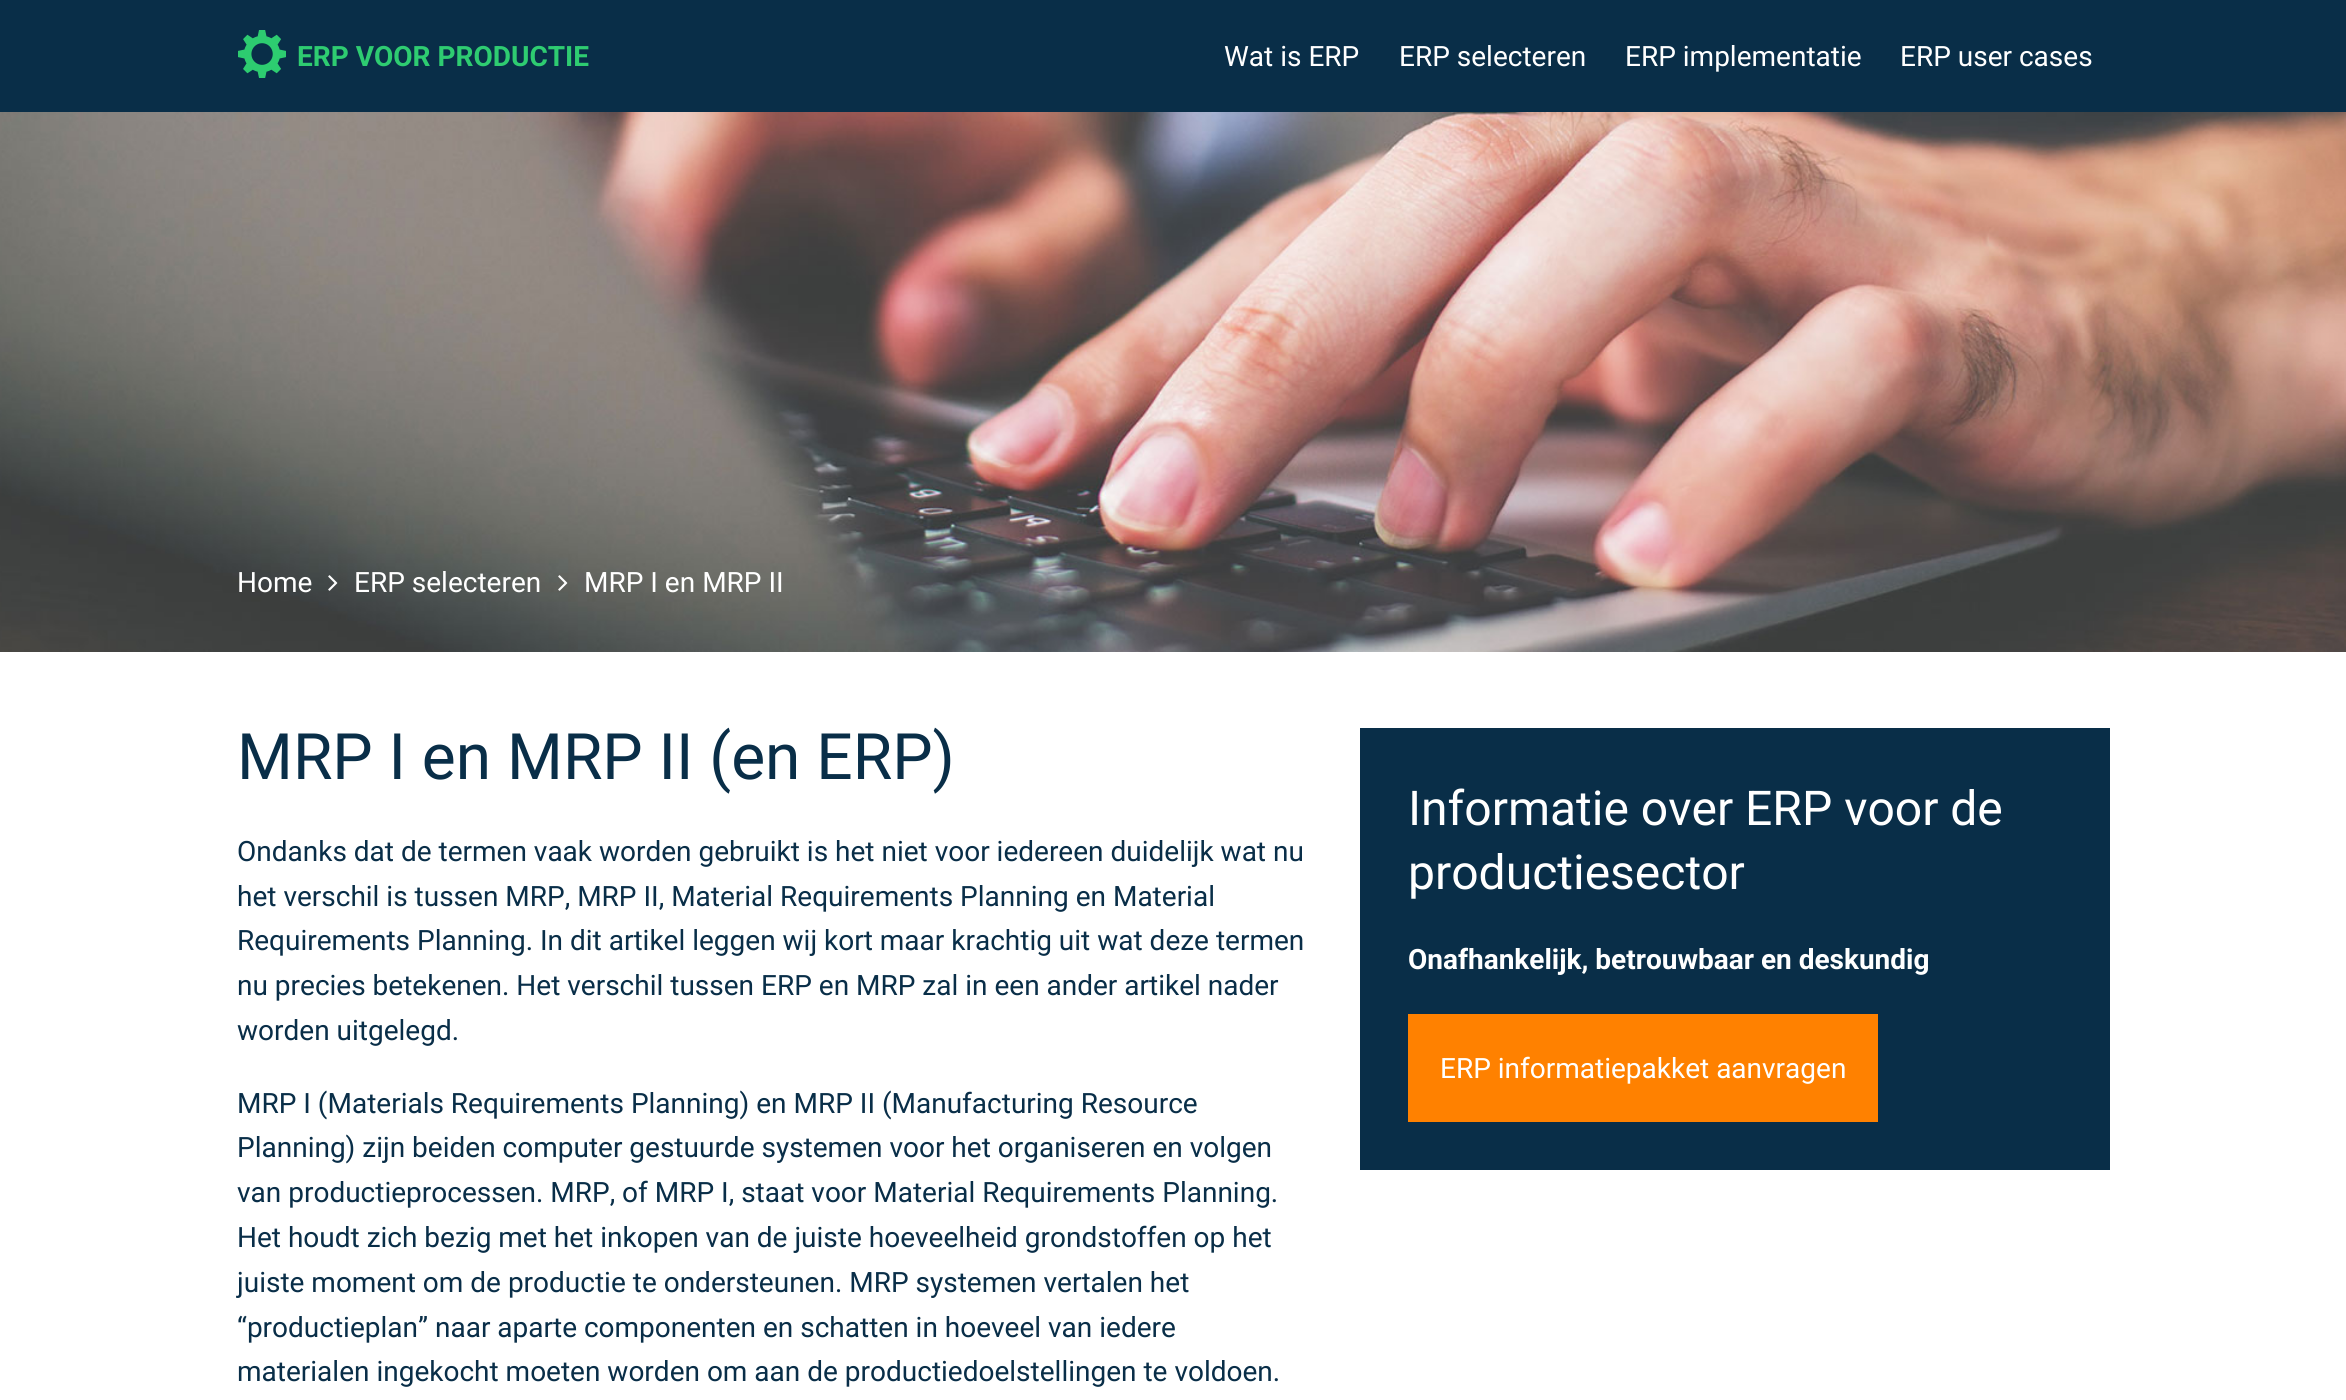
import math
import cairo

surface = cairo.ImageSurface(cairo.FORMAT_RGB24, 2346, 1400)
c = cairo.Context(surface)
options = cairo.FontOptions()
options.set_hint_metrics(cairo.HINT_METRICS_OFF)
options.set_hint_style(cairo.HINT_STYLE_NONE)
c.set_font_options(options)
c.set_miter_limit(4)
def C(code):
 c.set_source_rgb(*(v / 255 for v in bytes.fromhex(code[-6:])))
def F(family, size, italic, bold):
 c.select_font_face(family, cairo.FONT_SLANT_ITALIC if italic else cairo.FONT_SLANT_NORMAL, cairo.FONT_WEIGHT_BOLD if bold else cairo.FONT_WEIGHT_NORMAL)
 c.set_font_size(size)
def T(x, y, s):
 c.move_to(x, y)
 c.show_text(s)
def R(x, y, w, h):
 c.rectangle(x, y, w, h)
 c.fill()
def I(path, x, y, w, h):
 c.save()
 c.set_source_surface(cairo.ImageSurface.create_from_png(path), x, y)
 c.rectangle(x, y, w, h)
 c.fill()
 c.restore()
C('ffffff')
c.paint()
C('092e48')
R(0,0,2346,112)
I('1.png',238,30,48,48)
F('Roboto',28,0,1)
C('2ecc71')
T(297,66,'ERP VOOR PRODUCTIE')
F('Roboto',28,0,0)
C('ffffff')
T(1224,66,'Wat is ERP')
T(1399,66,'ERP selecteren')
T(1625,66,'ERP implementatie')
T(1900,66,'ERP user cases')
I('2.png',0,112,2346,540)
T(237,592,'Home')
I('3.png',328,575,10,16)
T(354,592,'ERP selecteren')
I('4.png',558,575,10,16)
T(584,592,'MRP I en MRP II')
F('Roboto',64,0,0)
C('092e48')
T(237,779,'MRP I en MRP II (en ERP)')
F('Roboto',28,0,0)
T(237,861,'Ondanks dat de termen vaak worden gebruikt is het niet voor iedereen duidelijk wat nu')
T(237,906,'het verschil is tussen MRP, MRP II, Material Requirements Planning en Material')
T(237,950,'Requirements Planning. In dit artikel leggen wij kort maar krachtig uit wat deze termen')
T(237,995,'nu precies betekenen. Het verschil tussen ERP en MRP zal in een ander artikel nader')
T(237,1040,'worden uitgelegd.')
T(237,1113,'MRP I (Materials Requirements Planning) en MRP II (Manufacturing Resource')
T(237,1157,'Planning) zijn beiden computer gestuurde systemen voor het organiseren en volgen')
T(237,1202,'van productieprocessen. MRP, of MRP I, staat voor Material Requirements Planning.')
T(237,1247,'Het houdt zich bezig met het inkopen van de juiste hoeveelheid grondstoffen op het')
T(237,1292,'juiste moment om de productie te ondersteunen. MRP systemen vertalen het')
T(237,1337,'“productieplan” naar aparte componenten en schatten in hoeveel van iedere')
T(237,1381,'materialen ingekocht moeten worden om aan de productiedoelstellingen te voldoen.')
R(1360,728,750,442)
F('Roboto',48,0,0)
C('ffffff')
T(1408,825,'Informatie over ERP voor de')
T(1408,889,'productiesector')
F('Roboto',28,0,1)
T(1408,969,'Onafhankelijk, betrouwbaar en deskundig')
C('ff8100')
R(1408,1014,470,108)
F('Roboto',28,0,0)
C('ffffff')
T(1440,1078,'ERP informatiepakket aanvragen')
surface.write_to_png('o.png')
